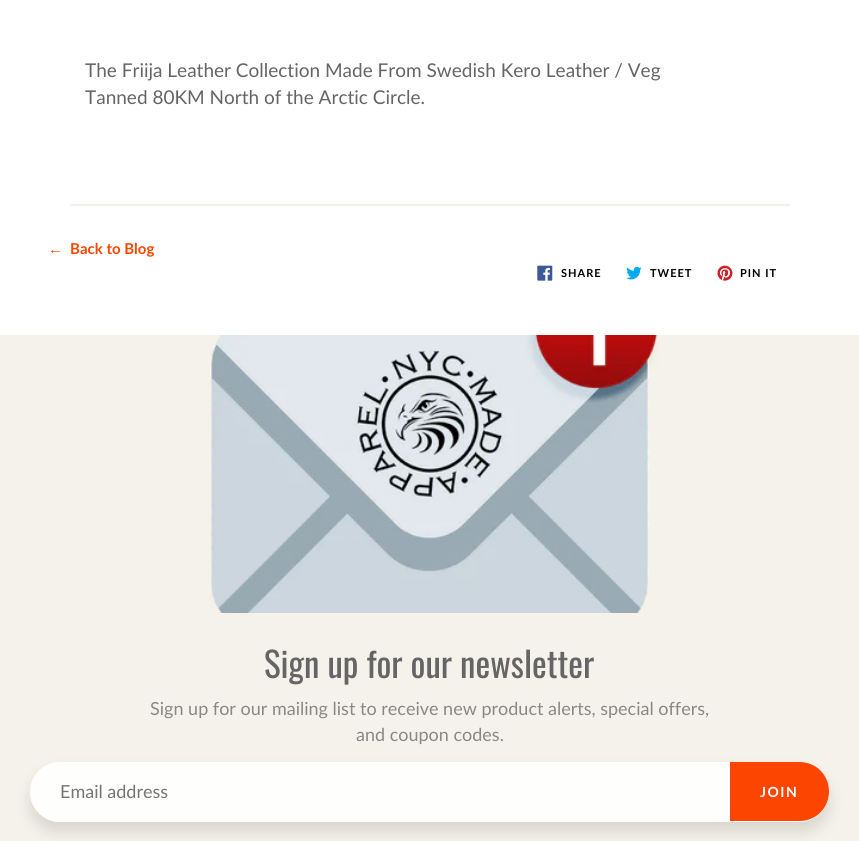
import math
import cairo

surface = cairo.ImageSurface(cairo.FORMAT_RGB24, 859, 841)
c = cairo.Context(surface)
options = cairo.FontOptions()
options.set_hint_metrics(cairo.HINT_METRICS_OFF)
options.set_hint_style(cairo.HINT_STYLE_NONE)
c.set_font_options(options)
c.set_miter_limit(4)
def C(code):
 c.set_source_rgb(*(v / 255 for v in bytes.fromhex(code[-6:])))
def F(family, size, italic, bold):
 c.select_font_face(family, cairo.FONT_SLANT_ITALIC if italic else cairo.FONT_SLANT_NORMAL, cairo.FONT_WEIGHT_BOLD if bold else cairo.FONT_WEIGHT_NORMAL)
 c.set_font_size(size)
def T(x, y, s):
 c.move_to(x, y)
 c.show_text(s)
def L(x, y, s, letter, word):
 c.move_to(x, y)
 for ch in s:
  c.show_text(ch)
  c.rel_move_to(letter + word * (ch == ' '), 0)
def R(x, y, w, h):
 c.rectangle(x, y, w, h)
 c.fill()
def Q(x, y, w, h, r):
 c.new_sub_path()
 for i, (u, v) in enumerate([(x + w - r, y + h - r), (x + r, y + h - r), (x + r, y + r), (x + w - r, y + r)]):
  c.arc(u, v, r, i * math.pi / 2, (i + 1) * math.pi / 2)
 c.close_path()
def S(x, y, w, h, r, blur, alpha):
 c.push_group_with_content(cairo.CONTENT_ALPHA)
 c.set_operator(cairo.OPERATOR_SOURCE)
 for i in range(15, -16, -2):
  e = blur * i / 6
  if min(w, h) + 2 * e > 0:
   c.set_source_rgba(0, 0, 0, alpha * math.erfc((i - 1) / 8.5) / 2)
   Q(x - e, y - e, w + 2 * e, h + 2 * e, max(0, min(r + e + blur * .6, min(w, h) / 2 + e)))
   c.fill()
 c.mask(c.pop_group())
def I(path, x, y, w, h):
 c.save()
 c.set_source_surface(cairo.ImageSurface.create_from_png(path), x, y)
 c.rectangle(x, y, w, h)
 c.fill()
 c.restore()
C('ffffff')
c.paint()
F('Lato',19,0,0)
C('666565')
T(85,77,'The Friija Leather Collection Made From Swedish Kero Leather / Veg')
T(85,104,'Tanned 80KM North of the Arctic Circle.')
C('f5f2eb')
R(70,204,720,2)
F('Liberation Sans',15,0,1)
C('fc4500')
T(48,254,'←')
F('Lato',15,0,1)
T(70,254,'Back to Blog')
I('1.png',537,265,16,16)
F('Lato',11,0,1)
C('000000')
L(561,277,'SHARE',1,0)
I('2.png',626,266,16,14)
L(650,277,'TWEET',1,0)
I('3.png',717,265,16,16)
L(740,277,'PIN IT',1,0)
C('f5f2eb')
R(0,335,859,506)
I('4.png',210,335,449,278)
F('Oswald',35,0,0)
C('666565')
T(264,678,'Sign up for our newsletter')
F('Lato',18,0,0)
C('8a8887')
T(150,715,'Sign up for our mailing list to receive new product alerts, special offers,')
T(356,741,'and coupon codes.')
c.save()
c.set_fill_rule(cairo.FILL_RULE_EVEN_ODD)
c.new_path()
c.move_to(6,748)
c.line_to(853,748)
c.line_to(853,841)
c.line_to(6,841)
c.close_path()
c.move_to(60,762)
c.line_to(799,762)
c.curve_to(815.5,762,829,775.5,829,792)
c.curve_to(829,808.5,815.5,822,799,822)
c.line_to(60,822)
c.curve_to(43.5,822,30,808.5,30,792)
c.curve_to(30,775.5,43.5,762,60,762)
c.close_path()
c.clip()
C('000000')
S(30,772,799,60,30,7.5,.12)
c.restore()
c.set_source_rgba(1,1,1,0.9)
Q(30,762,799,60,30)
c.fill()
C('757575')
T(60,798,'Email address')
C('fc4500')
c.new_path()
c.move_to(730,762)
c.line_to(799.5,762)
c.curve_to(816,762,829,775,829,791.5)
c.curve_to(829,808,816,821,799.5,821)
c.line_to(730,821)
c.close_path()
c.fill()
F('Lato',14,0,1)
C('ffffff')
L(760,797,'JOIN',1.5,0)
surface.write_to_png('o.png')
